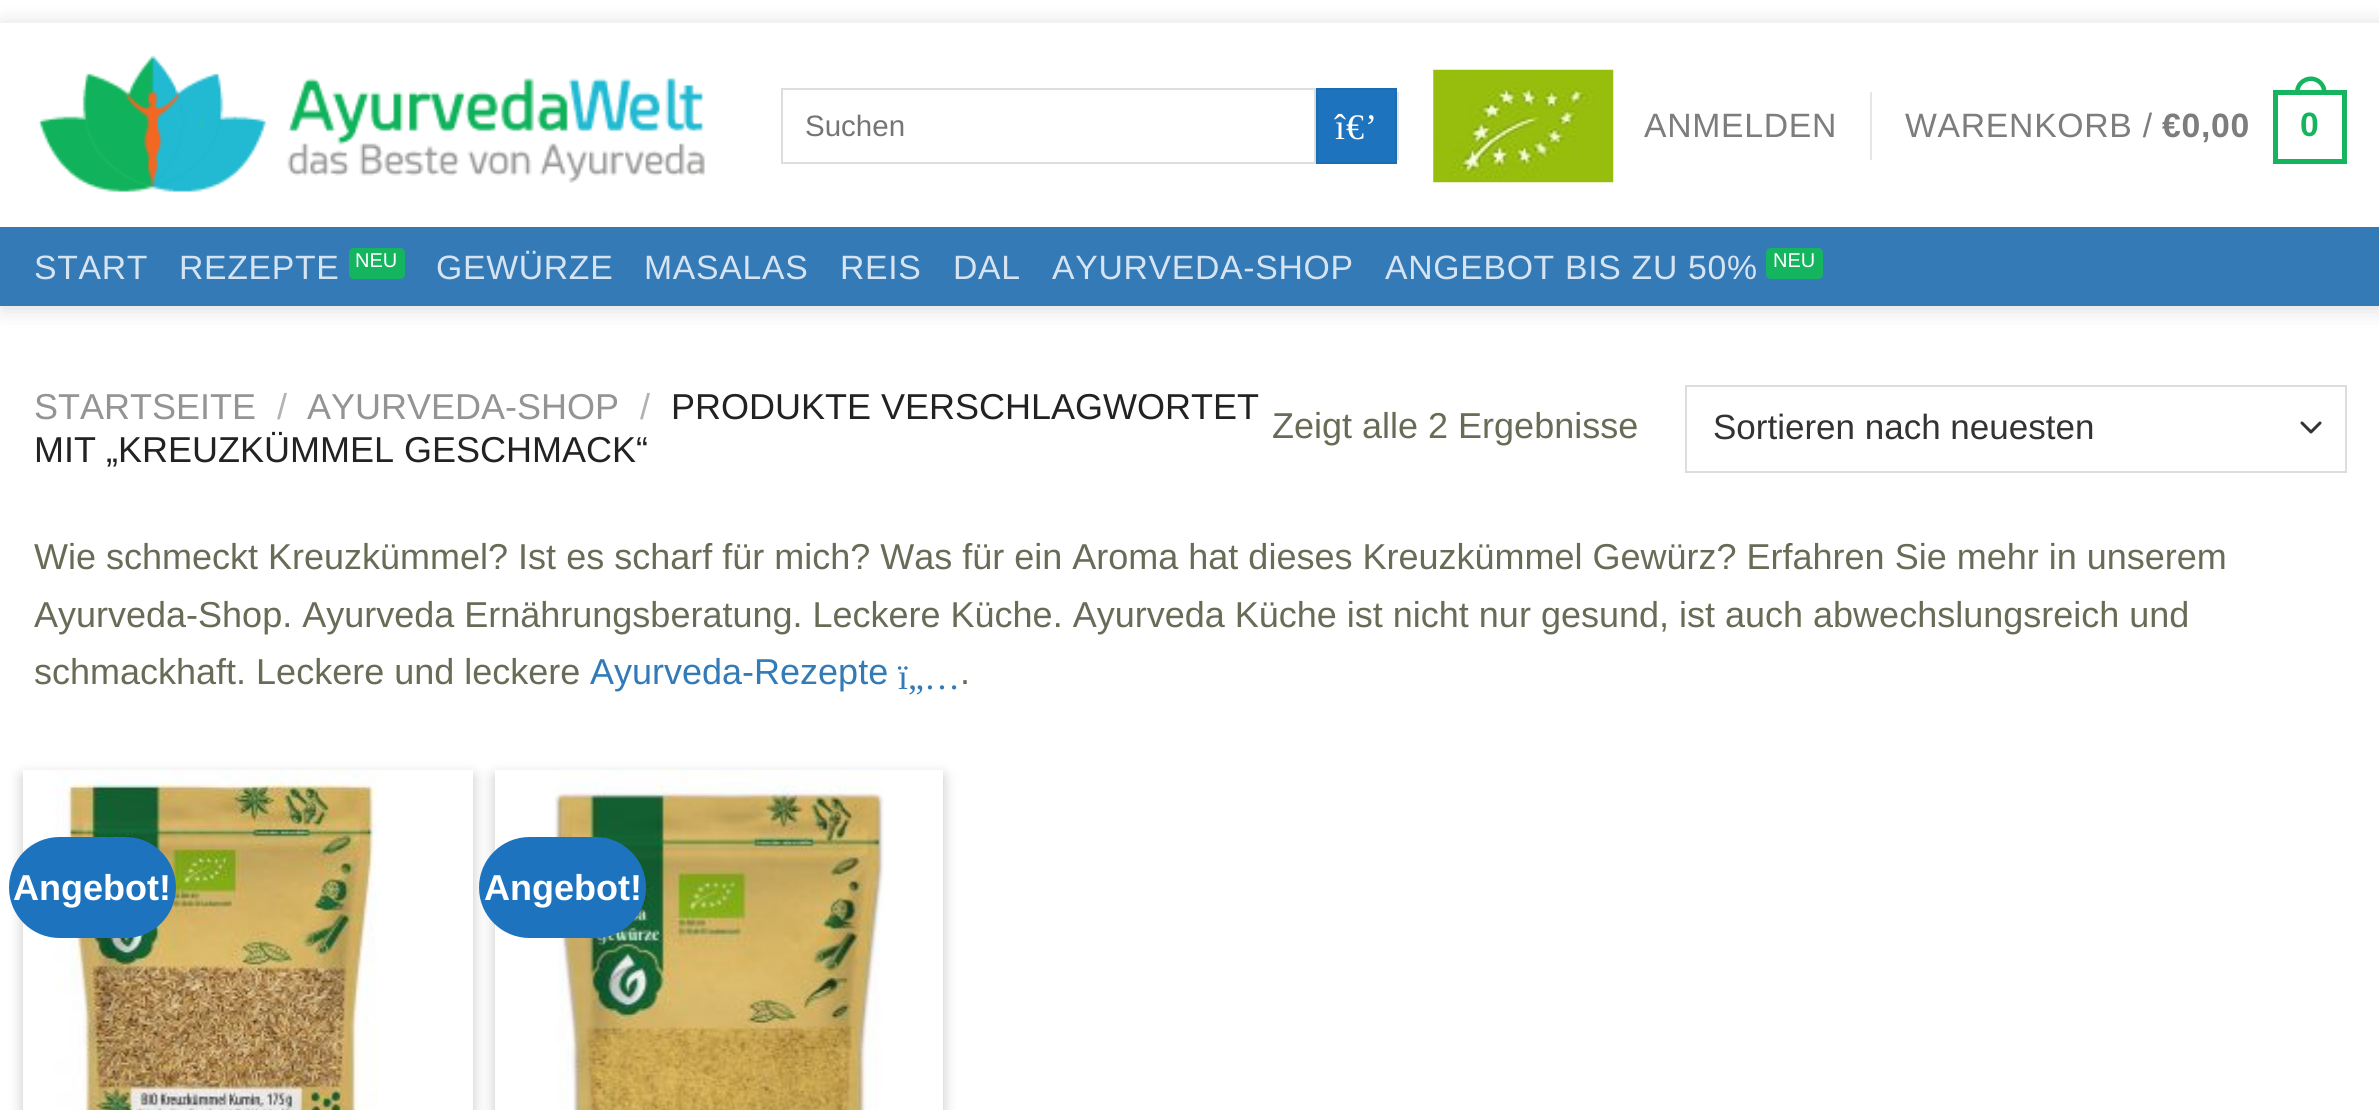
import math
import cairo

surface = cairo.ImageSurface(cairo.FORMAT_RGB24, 2379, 1110)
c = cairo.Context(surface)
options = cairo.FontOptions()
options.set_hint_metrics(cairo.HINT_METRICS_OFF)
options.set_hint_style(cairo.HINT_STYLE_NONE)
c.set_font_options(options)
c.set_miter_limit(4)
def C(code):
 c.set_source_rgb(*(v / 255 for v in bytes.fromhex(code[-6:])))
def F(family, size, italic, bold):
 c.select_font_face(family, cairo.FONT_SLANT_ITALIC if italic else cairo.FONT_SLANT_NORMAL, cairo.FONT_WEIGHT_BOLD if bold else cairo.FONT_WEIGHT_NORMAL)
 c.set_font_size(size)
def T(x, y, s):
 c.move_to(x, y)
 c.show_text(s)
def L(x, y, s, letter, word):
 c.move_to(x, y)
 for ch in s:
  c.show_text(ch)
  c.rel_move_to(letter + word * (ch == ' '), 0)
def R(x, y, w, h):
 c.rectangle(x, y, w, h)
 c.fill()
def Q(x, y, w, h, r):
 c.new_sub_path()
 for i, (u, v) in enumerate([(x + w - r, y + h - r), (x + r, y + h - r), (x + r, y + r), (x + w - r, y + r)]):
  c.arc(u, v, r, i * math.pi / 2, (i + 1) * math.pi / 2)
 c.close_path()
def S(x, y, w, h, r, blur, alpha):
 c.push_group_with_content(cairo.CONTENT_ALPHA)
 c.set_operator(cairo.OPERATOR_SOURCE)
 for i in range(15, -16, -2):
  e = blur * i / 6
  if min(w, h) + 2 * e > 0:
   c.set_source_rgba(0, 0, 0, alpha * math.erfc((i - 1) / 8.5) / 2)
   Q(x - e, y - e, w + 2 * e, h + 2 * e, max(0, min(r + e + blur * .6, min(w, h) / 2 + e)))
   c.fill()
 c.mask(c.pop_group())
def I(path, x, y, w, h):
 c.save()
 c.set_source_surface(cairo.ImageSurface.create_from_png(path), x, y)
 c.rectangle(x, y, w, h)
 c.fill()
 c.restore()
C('ffffff')
c.paint()
c.save()
c.set_fill_rule(cairo.FILL_RULE_EVEN_ODD)
c.new_path()
c.move_to(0,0)
c.line_to(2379,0)
c.line_to(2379,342)
c.line_to(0,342)
c.close_path()
c.move_to(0,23)
c.line_to(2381,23)
c.line_to(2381,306)
c.line_to(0,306)
c.close_path()
c.clip()
C('000000')
S(2,25,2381,283,0,11,.15)
c.restore()
I('1.png',38,55,667,137)
c.rectangle(782,89,533,74)
C('dddddd')
c.stroke()
F('Liberation Sans',29.5,0,0)
C('757575')
T(805,136,'Suchen')
C('1e73be')
c.rectangle(1317,89,79,74)
c.fill_preserve()
C('1d6db5')
c.stroke()
F('Liberation Serif',36,0,0)
C('ffffff')
L(1335,139,'î€’',1,0)
C('e6e6e6')
R(1397,92,2,68)
I('2.png',1433,69,181,114)
F('Liberation Sans',33.75,0,0)
C('7d7d7d')
L(1644,137,'ANMELDEN',.7,0)
C('e6e6e6')
R(1870,92,2,68)
C('7d7d7d')
L(1905,137,'WARENKORB /',.7,0)
F('Liberation Sans',33.75,0,1)
L(2162,137,'€0,00',.7,0)
c.rectangle(2275.5,92.5,69,69)
C('15b560')
c.set_line_width(5)
c.stroke()
c.set_fill_rule(cairo.FILL_RULE_EVEN_ODD)
c.new_path()
c.move_to(2311,76.5)
c.curve_to(2319.5,76.5,2326.5,83.5,2326.5,92)
c.line_to(2326.5,94.5)
c.line_to(2295,94.5)
c.line_to(2295,92)
c.curve_to(2295,83.5,2302,76.5,2311,76.5)
c.close_path()
c.move_to(2311,81)
c.curve_to(2317,81,2322,86,2322,92)
c.line_to(2322,94.5)
c.line_to(2299.5,94.5)
c.line_to(2299.5,92)
c.curve_to(2299.5,86,2304.5,81,2311,81)
c.close_path()
c.fill()
L(2300,136,'0',.7,0)
C('337ab7')
R(0,227,2379,79)
C('3879ad')
R(34,227,2313,2)
F('Liberation Sans',33.75,0,0)
C('d6e4f1')
L(34,279,'START',.7,0)
L(179,279,'REZEPTE',.7,0)
C('15b560')
Q(349,248,56,31,5)
c.fill()
F('Liberation Sans',20,0,0)
C('ffffff')
T(355,267,'NEU')
F('Liberation Sans',33.75,0,0)
C('d6e4f1')
L(436,279,'GEWÜRZE',.7,0)
L(644,279,'MASALAS',.7,0)
L(840,279,'REIS',.7,0)
L(953,279,'DAL',.7,0)
L(1052,279,'AYURVEDA-SHOP',.7,0)
L(1385,279,'ANGEBOT BIS ZU 50%',.7,0)
C('15b560')
Q(1766,248,57,31,5)
c.fill()
F('Liberation Sans',20,0,0)
C('ffffff')
T(1773,267,'NEU')
F('Liberation Sans',36,0,0)
C('949494')
T(34,419,'STARTSEITE')
C('b2b2b2')
T(277,419,'/')
C('949494')
T(307,419,'AYURVEDA-SHOP')
C('b2b2b2')
T(640,419,'/')
C('222222')
T(671,419,'PRODUKTE VERSCHLAGWORTET')
T(34,462,'MIT „KREUZKÜMMEL GESCHMACK“')
C('686c56')
T(1272,438,'Zeigt alle 2 Ergebnisse')
c.new_path()
c.move_to(2302,423)
c.line_to(2311,432)
c.line_to(2320,423)
C('333333')
c.set_line_width(3)
c.set_line_cap(cairo.LINE_CAP_ROUND)
c.set_line_join(cairo.LINE_JOIN_ROUND)
c.stroke()
c.rectangle(1686,386,660,86)
C('dddddd')
c.set_line_width(2)
c.set_line_cap(cairo.LINE_CAP_BUTT)
c.set_line_join(cairo.LINE_JOIN_MITER)
c.stroke()
F('Liberation Sans',35,0,0)
C('333333')
T(1713,439,'Sortieren nach neuesten')
F('Liberation Sans',36,0,0)
C('686c56')
T(34,569,'Wie schmeckt Kreuzkümmel? Ist es scharf für mich? Was für ein Aroma hat dieses Kreuzkümmel Gewürz? Erfahren Sie mehr in unserem')
T(34,627,'Ayurveda-Shop. Ayurveda Ernährungsberatung. Leckere Küche. Ayurveda Küche ist nicht nur gesund, ist auch abwechslungsreich und')
T(34,684,'schmackhaft. Leckere und leckere')
C('337ab7')
T(590,684,'Ayurveda-Rezepte')
F('Liberation Serif',36,0,0)
T(898,689,'ï„…')
F('Liberation Sans',36,0,0)
C('686c56')
T(960,684,'.')
C('000000')
S(23,776,450,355,0,7,.23)
C('ffffff')
R(23,770,450,340)
I('3.png',54,770,324,340)
C('1e73be')
Q(9,837,167,101,50.5)
c.fill()
F('Liberation Sans',36,0,1)
C('ffffff')
T(13,900,'Angebot!')
C('000000')
S(495,776,448,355,0,7,.23)
C('ffffff')
R(495,770,448,340)
I('4.png',554,770,330,340)
C('1e73be')
Q(479,837,167,101,50.5)
c.fill()
C('ffffff')
T(484,900,'Angebot!')
surface.write_to_png('o.png')
